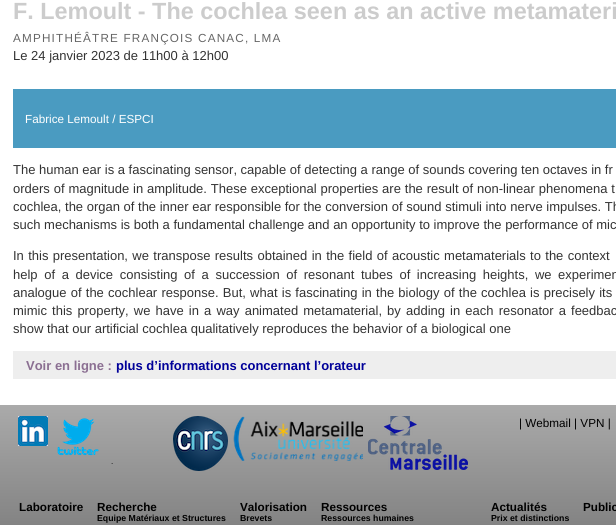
import math
import cairo

surface = cairo.ImageSurface(cairo.FORMAT_RGB24, 616, 525)
c = cairo.Context(surface)
options = cairo.FontOptions()
options.set_hint_metrics(cairo.HINT_METRICS_OFF)
options.set_hint_style(cairo.HINT_STYLE_NONE)
c.set_font_options(options)
c.set_miter_limit(4)
def C(code):
 c.set_source_rgb(*(v / 255 for v in bytes.fromhex(code[-6:])))
def F(family, size, italic, bold):
 c.select_font_face(family, cairo.FONT_SLANT_ITALIC if italic else cairo.FONT_SLANT_NORMAL, cairo.FONT_WEIGHT_BOLD if bold else cairo.FONT_WEIGHT_NORMAL)
 c.set_font_size(size)
def T(x, y, s):
 c.move_to(x, y)
 c.show_text(s)
def L(x, y, s, letter, word):
 c.move_to(x, y)
 for ch in s:
  c.show_text(ch)
  c.rel_move_to(letter + word * (ch == ' '), 0)
def R(x, y, w, h):
 c.rectangle(x, y, w, h)
 c.fill()
def I(path, x, y, w, h):
 c.save()
 c.set_source_surface(cairo.ImageSurface.create_from_png(path), x, y)
 c.rectangle(x, y, w, h)
 c.fill()
 c.restore()
C('ffffff')
c.paint()
F('Liberation Sans',23.4,0,1)
C('cccccc')
T(13,19,'F. Lemoult - The cochlea seen as an active metamateri')
F('Liberation Sans',11.7,0,0)
C('666666')
L(13,42,'AMPHITHÉÂTRE FRANÇOIS CANAC, LMA',1.2,0)
F('Liberation Sans',13,0,0)
C('333333')
T(13,60,'Le 24 janvier 2023 de 11h00 à 12h00')
C('4a9bc1')
R(13,89,603,59)
F('Liberation Sans',11.7,0,0)
C('ffffff')
T(25,123,'Fabrice Lemoult / ESPCI')
F('Liberation Sans',13,0,0)
C('333333')
T(13,174,'The human ear is a fascinating sensor, capable of detecting a range of sounds covering ten octaves in fr')
L(13,193,'orders of magnitude in amplitude. These exceptional properties are the result of non-linear phenomena t',0,.25)
T(13,211,'cochlea, the organ of the inner ear responsible for the conversion of sound stimuli into nerve impulses. Th')
T(13,229,'such mechanisms is both a fundamental challenge and an opportunity to improve the performance of mic')
L(13,260,'In this presentation, we transpose results obtained in the field of acoustic metamaterials to the context',0,.75)
L(13,279,'help of a device consisting of a succession of resonant tubes of increasing heights, we experimen',0,3)
L(13,297,'analogue of the cochlear response. But, what is fascinating in the biology of the cochlea is precisely its',0,.6)
L(13,315,'mimic this property, we have in a way animated metamaterial, by adding in each resonator a feedbac',0,1.5)
T(13,333,'show that our artificial cochlea qualitatively reproduces the behavior of a biological one')
C('eeeeee')
R(13,351,603,28)
F('Liberation Sans',13,0,1)
C('8b6f92')
T(26,370,'Voir en ligne :')
C('000099')
T(116,370,'plus d’informations concernant l’orateur')
gradient = cairo.LinearGradient(475,405,475,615)
gradient.add_color_stop_rgba(0,0.667,0.667,0.667,1)
gradient.add_color_stop_rgba(1,0.4,0.4,0.4,1)
c.set_source(gradient)
R(0,405,616,120)
F('Liberation Sans',11.7,0,0)
C('000000')
T(519,427,'| Webmail | VPN |')
I('1.png',18,416,30,30)
I('2.png',57,418,42,38)
F('Liberation Sans',8,0,0)
T(111,464,'.')
I('3.png',173,416,55,55)
I('4.png',233,416,130,45)
I('5.png',368,416,100,54)
F('Liberation Sans',11.7,0,1)
T(19,511,'Laboratoire')
T(97,511,'Recherche')
F('Liberation Sans',8.75,0,1)
T(97,521,'Equipe Matériaux et Structures')
F('Liberation Sans',11.7,0,1)
T(240,511,'Valorisation')
F('Liberation Sans',8.75,0,1)
T(240,521,'Brevets')
F('Liberation Sans',11.7,0,1)
T(321,511,'Ressources')
F('Liberation Sans',8.75,0,1)
T(321,521,'Ressources humaines')
F('Liberation Sans',11.7,0,1)
T(491,511,'Actualités')
F('Liberation Sans',8.75,0,1)
T(491,521,'Prix et distinctions')
F('Liberation Sans',11.7,0,1)
T(583,511,'Public')
surface.write_to_png('o.png')
